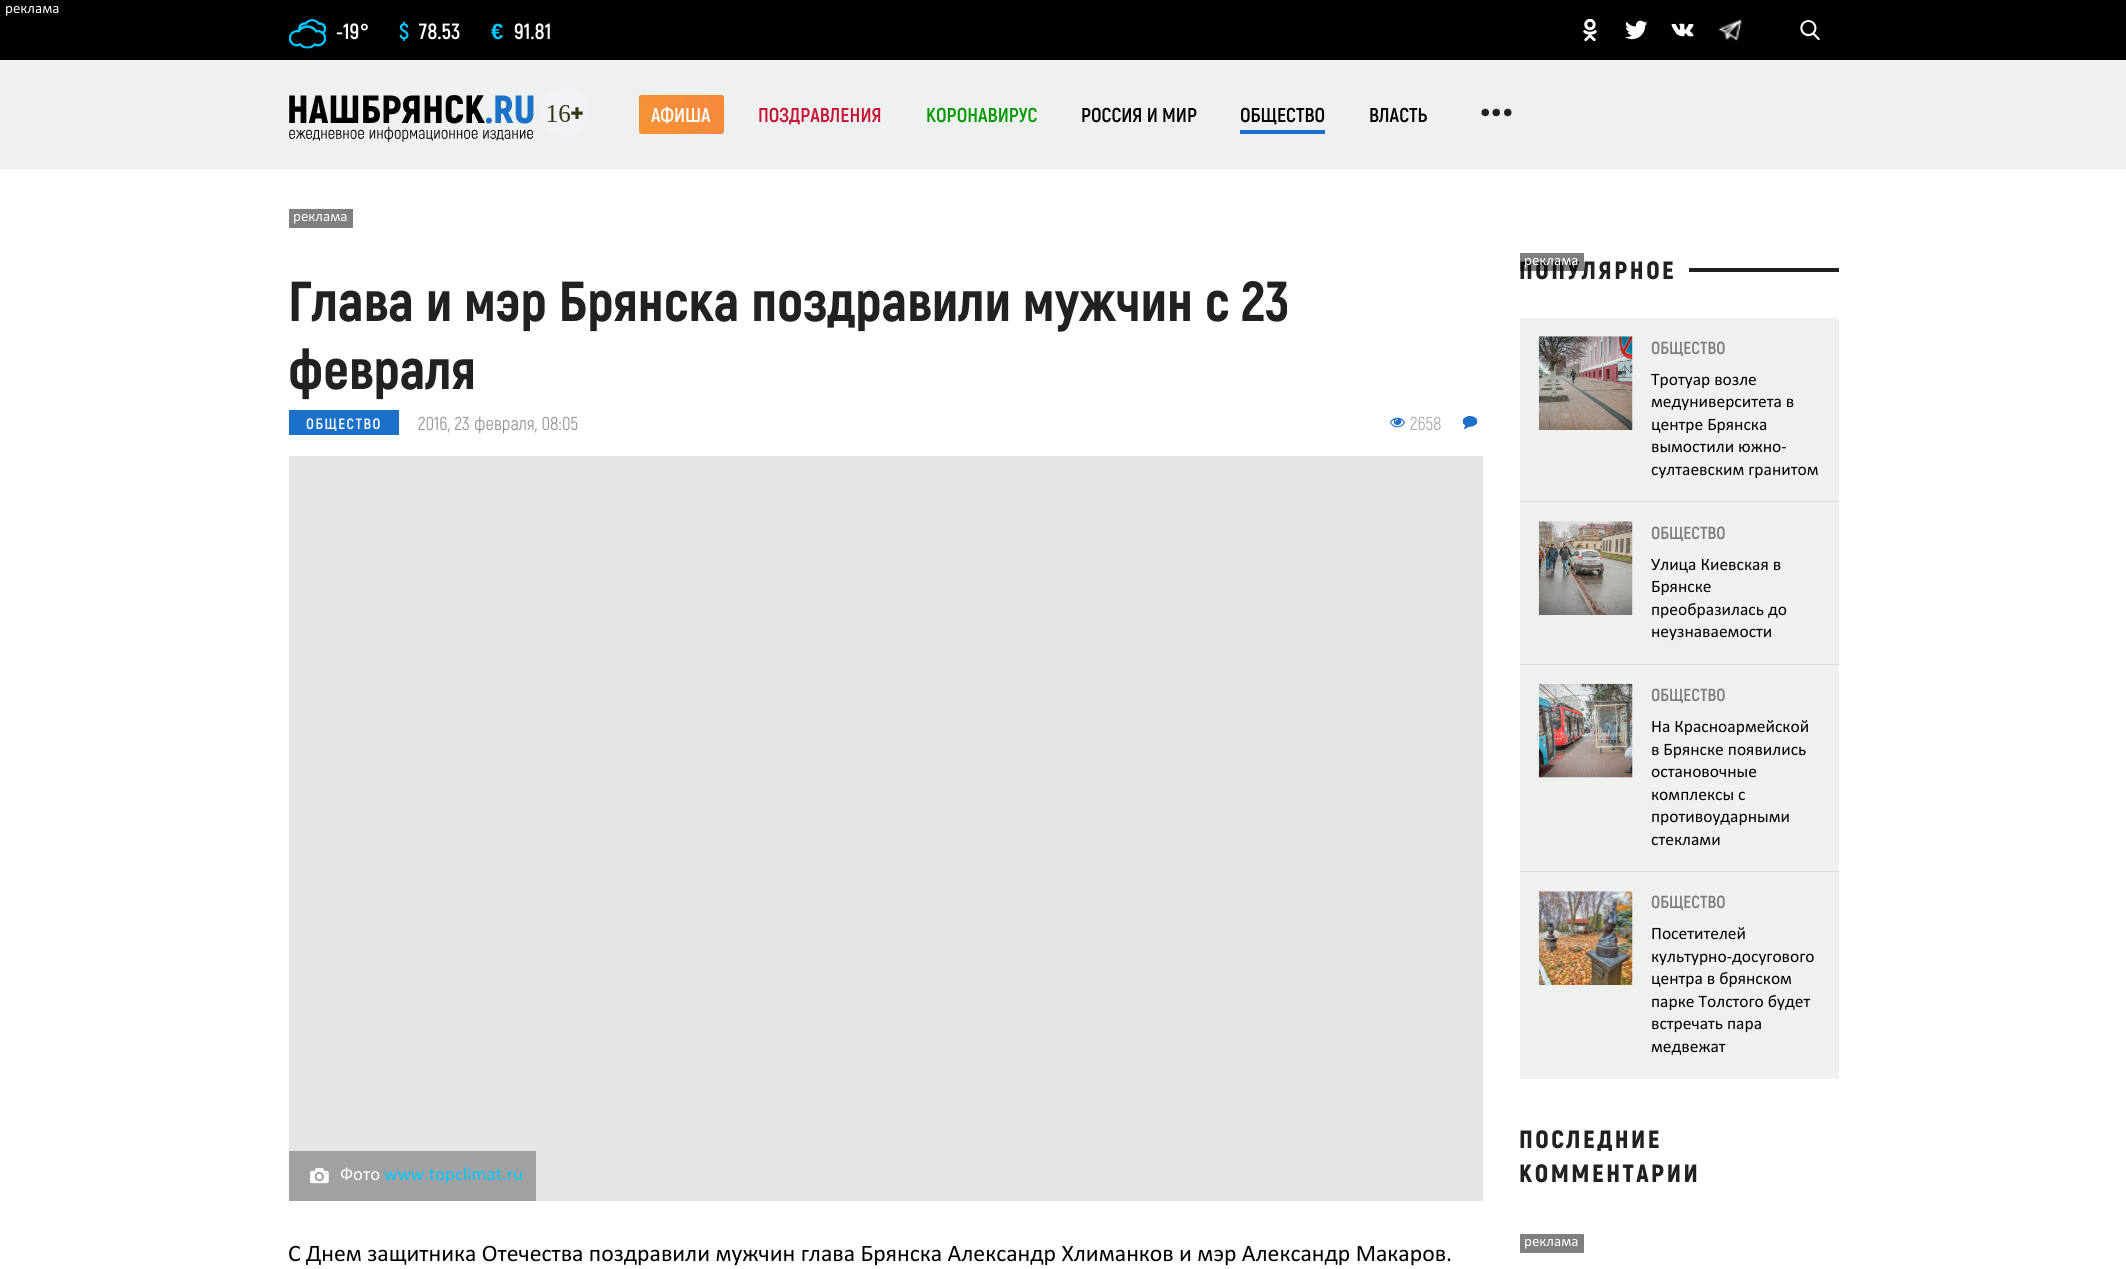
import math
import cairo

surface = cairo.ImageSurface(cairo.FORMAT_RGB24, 2126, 1269)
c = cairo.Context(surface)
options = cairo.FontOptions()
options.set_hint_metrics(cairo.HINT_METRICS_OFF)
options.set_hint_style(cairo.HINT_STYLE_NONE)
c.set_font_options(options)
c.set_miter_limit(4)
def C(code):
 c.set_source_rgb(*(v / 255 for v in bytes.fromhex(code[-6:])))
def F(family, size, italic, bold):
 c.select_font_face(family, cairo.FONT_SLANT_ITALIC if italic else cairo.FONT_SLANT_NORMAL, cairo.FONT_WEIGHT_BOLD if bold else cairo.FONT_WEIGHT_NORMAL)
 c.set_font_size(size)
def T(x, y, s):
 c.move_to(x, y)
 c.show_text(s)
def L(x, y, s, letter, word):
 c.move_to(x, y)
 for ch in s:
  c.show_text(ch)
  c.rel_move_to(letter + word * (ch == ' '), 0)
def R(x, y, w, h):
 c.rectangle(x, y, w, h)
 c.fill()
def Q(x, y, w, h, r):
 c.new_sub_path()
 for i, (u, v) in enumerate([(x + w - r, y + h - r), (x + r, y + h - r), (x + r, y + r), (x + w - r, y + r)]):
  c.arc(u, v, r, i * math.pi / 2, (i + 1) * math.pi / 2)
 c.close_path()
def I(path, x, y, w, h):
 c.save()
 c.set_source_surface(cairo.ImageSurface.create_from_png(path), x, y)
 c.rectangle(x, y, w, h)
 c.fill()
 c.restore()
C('ffffff')
c.paint()
C('000000')
R(0,0,2126,60)
F('Calibri',15,0,0)
C('ffffff')
T(5,13,'реклама')
I('1.png',289,19,37,30)
F('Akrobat',22,0,1)
T(336,39,'-19')
F('Liberation Sans',22,0,1)
T(360,39,'°')
F('Akrobat',22,0,1)
C('00c7ff')
T(399,39,'$')
C('ffffff')
T(419,39,'78.53')
F('Liberation Sans',22,0,1)
C('00c7ff')
T(491,39,'€')
F('Akrobat',22,0,1)
C('ffffff')
T(514,39,'91.81')
I('2.png',1583,19,14,22)
I('3.png',1625,20,23,20)
I('4.png',1671,23,23,14)
I('5.png',1718,19,24,22)
I('6.png',1800,20,20,20)
C('eef1f0')
R(0,60,2126,109)
I('7.png',289,88,299,54)
gradient = cairo.LinearGradient(894,584,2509,-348)
gradient.add_color_stop_rgba(0,0.969,0.584,0.2,1)
gradient.add_color_stop_rgba(.14,0.953,0.439,0.333,1)
gradient.add_color_stop_rgba(.29,0.937,0.306,0.482,1)
gradient.add_color_stop_rgba(.43,0.631,0.4,0.671,1)
gradient.add_color_stop_rgba(.57,0.314,0.451,0.722,1)
gradient.add_color_stop_rgba(.71,0.063,0.596,0.678,1)
gradient.add_color_stop_rgba(.86,0.027,0.702,0.608,1)
gradient.add_color_stop_rgba(1,0.435,0.729,0.51,1)
c.set_source(gradient)
Q(639,95,85,39,2.5)
c.fill()
F('Akrobat',20,0,1)
C('ffffff')
T(651,122,'АФИША')
C('c71236')
T(758,122,'ПОЗДРАВЛЕНИЯ')
C('009900')
T(926,122,'КОРОНАВИРУС')
C('000000')
T(1081,122,'РОССИЯ И МИР')
T(1240,122,'ОБЩЕСТВО')
C('1b71c9')
R(1240,130,85,4)
C('000000')
T(1369,122,'ВЛАСТЬ')
C('232020')
c.new_path()
c.move_to(1511.5,112.5)
c.curve_to(1511.5,117.5,1504,117.5,1504,112.5)
c.curve_to(1504,107.5,1511.5,107.5,1511.5,112.5)
c.close_path()
c.move_to(1500,112.5)
c.curve_to(1500,117.5,1492.5,117.5,1492.5,112.5)
c.curve_to(1492.5,107.5,1500,107.5,1500,112.5)
c.close_path()
c.move_to(1489,112.5)
c.curve_to(1489,117.5,1481.5,117.5,1481.5,112.5)
c.curve_to(1481.5,107.5,1489,107.5,1489,112.5)
c.close_path()
c.fill()
C('808080')
R(289,209,64,19)
F('Calibri',15,0,0)
C('ffffff')
T(293,221,'реклама')
F('Akrobat ExtraBold',56.25,0,0)
C('232020')
T(288,321,'Глава и мэр Брянска поздравили мужчин с 23')
T(288,389,'февраля')
C('1b71c9')
R(289,410,110,25)
F('Akrobat',15,0,1)
C('ffffff')
L(306,429,'ОБЩЕСТВО',1.5,0)
F('Akrobat',18.75,0,0)
C('939393')
T(418,430,'2016, 23 февраля, 08:05')
I('8.png',1390,417,15,11)
C('ababab')
T(1410,430,'2658')
I('9.png',1462,416,16,13)
C('e6e6e6')
R(289,456,1194,745)
C('a1a1a1')
R(289,1151,247,50)
I('10.png',310,1168,19,16)
F('Calibri',18.75,0,0)
C('ffffff')
T(340,1180,'Фото')
C('00c7ff')
T(384,1180,'www.topclimat.ru')
F('Calibri',23.75,0,0)
C('000000')
T(288,1261,'С Днем защитника Отечества поздравили мужчин глава Брянска Александр Хлиманков и мэр Александр Макаров.')
F('Akrobat Black',25,0,0)
C('232020')
L(1519,279,'ПОПУЛЯРНОЕ',2.5,0)
c.set_source_rgba(0,0,0,0.5)
R(1520,253,64,18)
F('Calibri',15,0,0)
C('ffffff')
T(1524,265,'реклама')
C('232020')
R(1689,268,150,4)
C('eef1f0')
R(1520,318,319,346)
C('d7d9d8')
R(1520,501,319,1)
I('11.png',1538,336,95,94)
F('Akrobat',17.5,0,1)
C('7c7c7c')
T(1651,354,'ОБЩЕСТВО')
F('Calibri',17.5,0,0)
C('000000')
T(1651,385,'Тротуар возле')
T(1651,407,'медуниверситета в')
T(1651,430,'центре Брянска')
T(1651,452,'вымостили южно-')
T(1651,475,'султаевским гранитом')
C('d7d9d8')
R(1520,664,319,1)
I('12.png',1538,521,95,94)
F('Akrobat',17.5,0,1)
C('7c7c7c')
T(1651,539,'ОБЩЕСТВО')
F('Calibri',17.5,0,0)
C('000000')
T(1651,570,'Улица Киевская в')
T(1651,592,'Брянске')
T(1651,615,'преобразилась до')
T(1651,637,'неузнаваемости')
C('eef1f0')
R(1520,665,319,414)
C('d7d9d8')
R(1520,871,319,1)
I('13.png',1538,683,95,95)
F('Akrobat',17.5,0,1)
C('7c7c7c')
T(1651,701,'ОБЩЕСТВО')
F('Calibri',17.5,0,0)
C('000000')
T(1651,732,'На Красноармейской')
T(1651,755,'в Брянске появились')
T(1651,777,'остановочные')
T(1651,800,'комплексы с')
T(1651,822,'противоударными')
T(1651,845,'стеклами')
I('14.png',1538,891,95,94)
F('Akrobat',17.5,0,1)
C('7c7c7c')
T(1651,908,'ОБЩЕСТВО')
F('Calibri',17.5,0,0)
C('000000')
T(1651,939,'Посетителей')
T(1651,962,'культурно-досугового')
T(1651,984,'центра в брянском')
T(1651,1007,'парке Толстого будет')
T(1651,1029,'встречать пара')
T(1651,1052,'медвежат')
F('Akrobat Black',25,0,0)
C('232020')
L(1519,1148,'ПОСЛЕДНИЕ',2.5,0)
L(1519,1182,'КОММЕНТАРИИ',2.5,0)
C('808080')
R(1520,1234,64,19)
F('Calibri',15,0,0)
C('ffffff')
T(1524,1246,'реклама')
surface.write_to_png('o.png')
